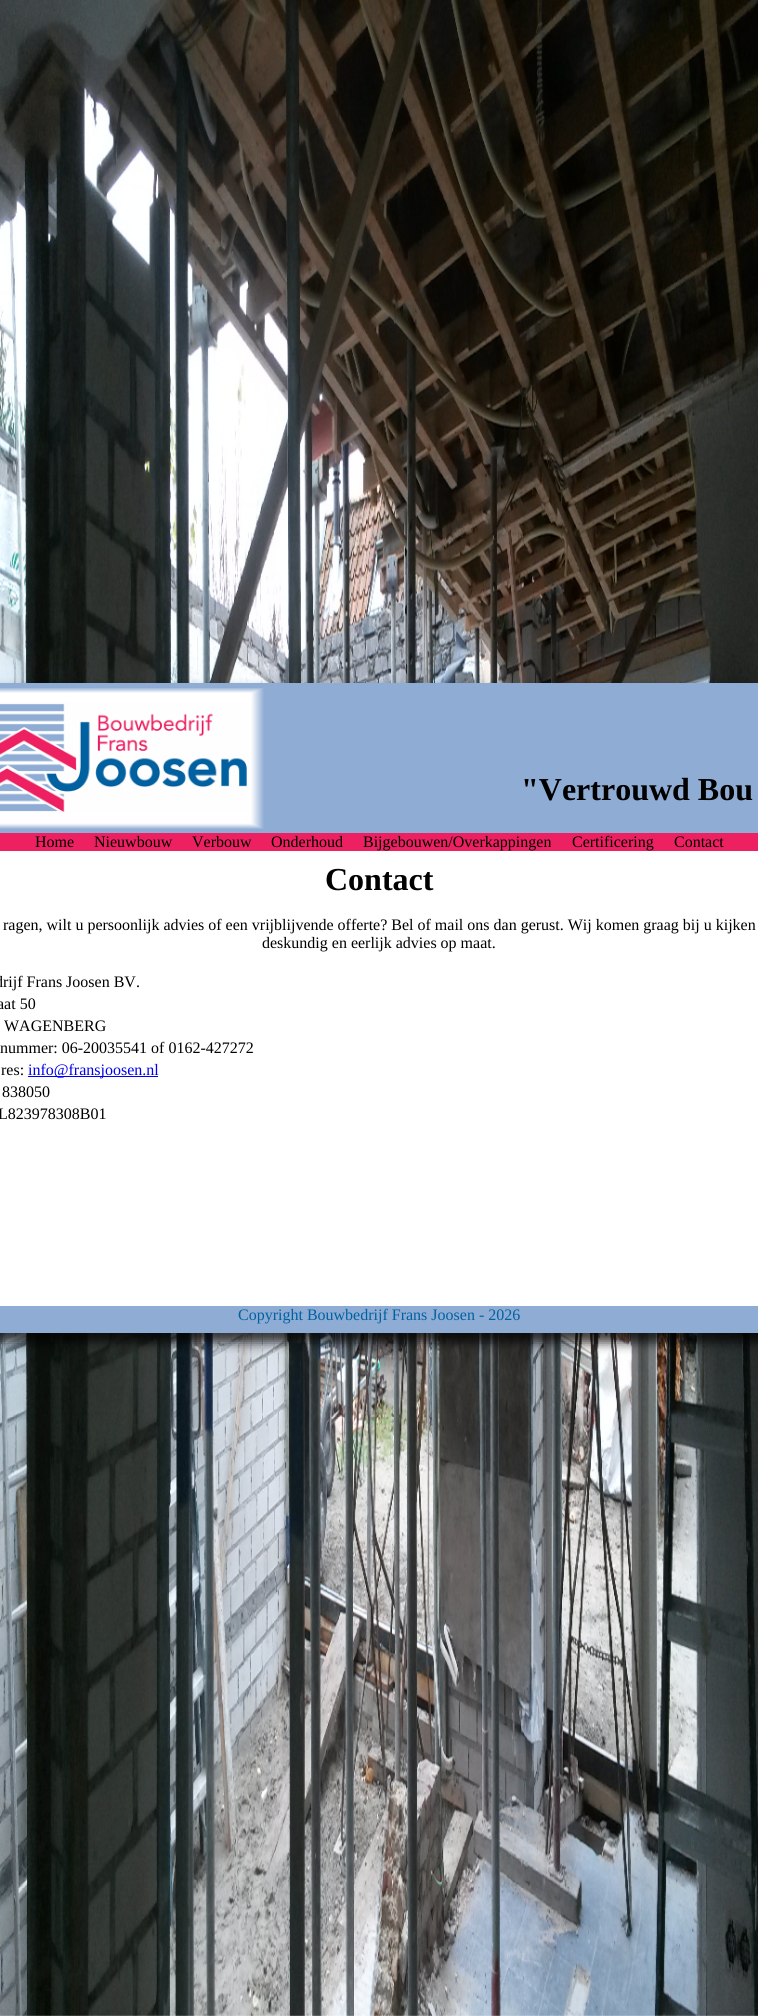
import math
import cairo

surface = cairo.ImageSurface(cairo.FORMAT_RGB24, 758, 2016)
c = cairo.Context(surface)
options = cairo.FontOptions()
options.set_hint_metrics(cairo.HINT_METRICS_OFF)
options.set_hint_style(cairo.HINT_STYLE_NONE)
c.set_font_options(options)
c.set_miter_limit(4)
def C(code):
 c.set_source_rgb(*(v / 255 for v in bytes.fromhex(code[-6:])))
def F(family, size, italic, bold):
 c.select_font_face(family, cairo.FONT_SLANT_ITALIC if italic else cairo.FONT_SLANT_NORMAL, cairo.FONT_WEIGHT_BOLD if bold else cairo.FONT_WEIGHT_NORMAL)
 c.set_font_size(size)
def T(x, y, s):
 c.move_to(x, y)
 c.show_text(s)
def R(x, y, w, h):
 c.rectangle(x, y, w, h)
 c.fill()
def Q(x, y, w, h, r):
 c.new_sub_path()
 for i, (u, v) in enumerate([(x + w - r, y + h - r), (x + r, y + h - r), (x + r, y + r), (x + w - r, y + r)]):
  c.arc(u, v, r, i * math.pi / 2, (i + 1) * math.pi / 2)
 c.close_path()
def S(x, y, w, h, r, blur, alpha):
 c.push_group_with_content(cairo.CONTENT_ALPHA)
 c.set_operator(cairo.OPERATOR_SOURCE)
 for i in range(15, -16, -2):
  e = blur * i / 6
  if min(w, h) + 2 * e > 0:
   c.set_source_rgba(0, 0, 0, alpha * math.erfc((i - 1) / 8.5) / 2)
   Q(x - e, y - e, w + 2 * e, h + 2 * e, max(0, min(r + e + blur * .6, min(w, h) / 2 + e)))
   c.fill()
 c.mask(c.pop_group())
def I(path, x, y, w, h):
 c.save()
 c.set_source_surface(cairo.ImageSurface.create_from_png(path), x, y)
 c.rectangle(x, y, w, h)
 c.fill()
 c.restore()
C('ffffff')
c.paint()
I('1.png',0,0,758,2016)
C('000000')
S(-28,691,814,652,11,5.5,.75)
C('8eacd4')
R(0,683,758,650)
I('2.png',0,688,264,141)
F('Liberation Serif',32,0,1)
C('000000')
T(521,800,'"Vertrouwd Bou')
C('ed2161')
R(0,833,758,18)
F('Liberation Serif',16,0,0)
C('000000')
T(35,847,'Home')
T(94,847,'Nieuwbouw')
T(192,847,'Verbouw')
T(271,847,'Onderhoud')
T(363,847,'Bijgebouwen/Overkappingen')
T(572,847,'Certificering')
T(674,847,'Contact')
C('ffffff')
R(0,851,758,455)
F('Liberation Serif',32,0,1)
C('000000')
T(325,890,'Contact')
F('Liberation Serif',16,0,0)
T(3,930,'ragen, wilt u persoonlijk advies of een vrijblijvende offerte? Bel of mail ons dan gerust. Wij komen graag bij u kijken')
T(262,948,'deskundig en eerlijk advies op maat.')
T(-5,987,'drijf Frans Joosen BV.')
T(-3,1009,'aat 50')
T(4,1031,'WAGENBERG')
T(0,1053,'nummer: 06-20035541 of 0162-427272')
T(1,1075,'res:')
C('0000ee')
R(28,1076,130,1)
T(28,1075,'info@fransjoosen.nl')
C('000000')
T(2,1097,'838050')
T(-2,1119,'L823978308B01')
C('0061a1')
T(238,1320,'Copyright Bouwbedrijf Frans Joosen - 2026')
surface.write_to_png('o.png')
